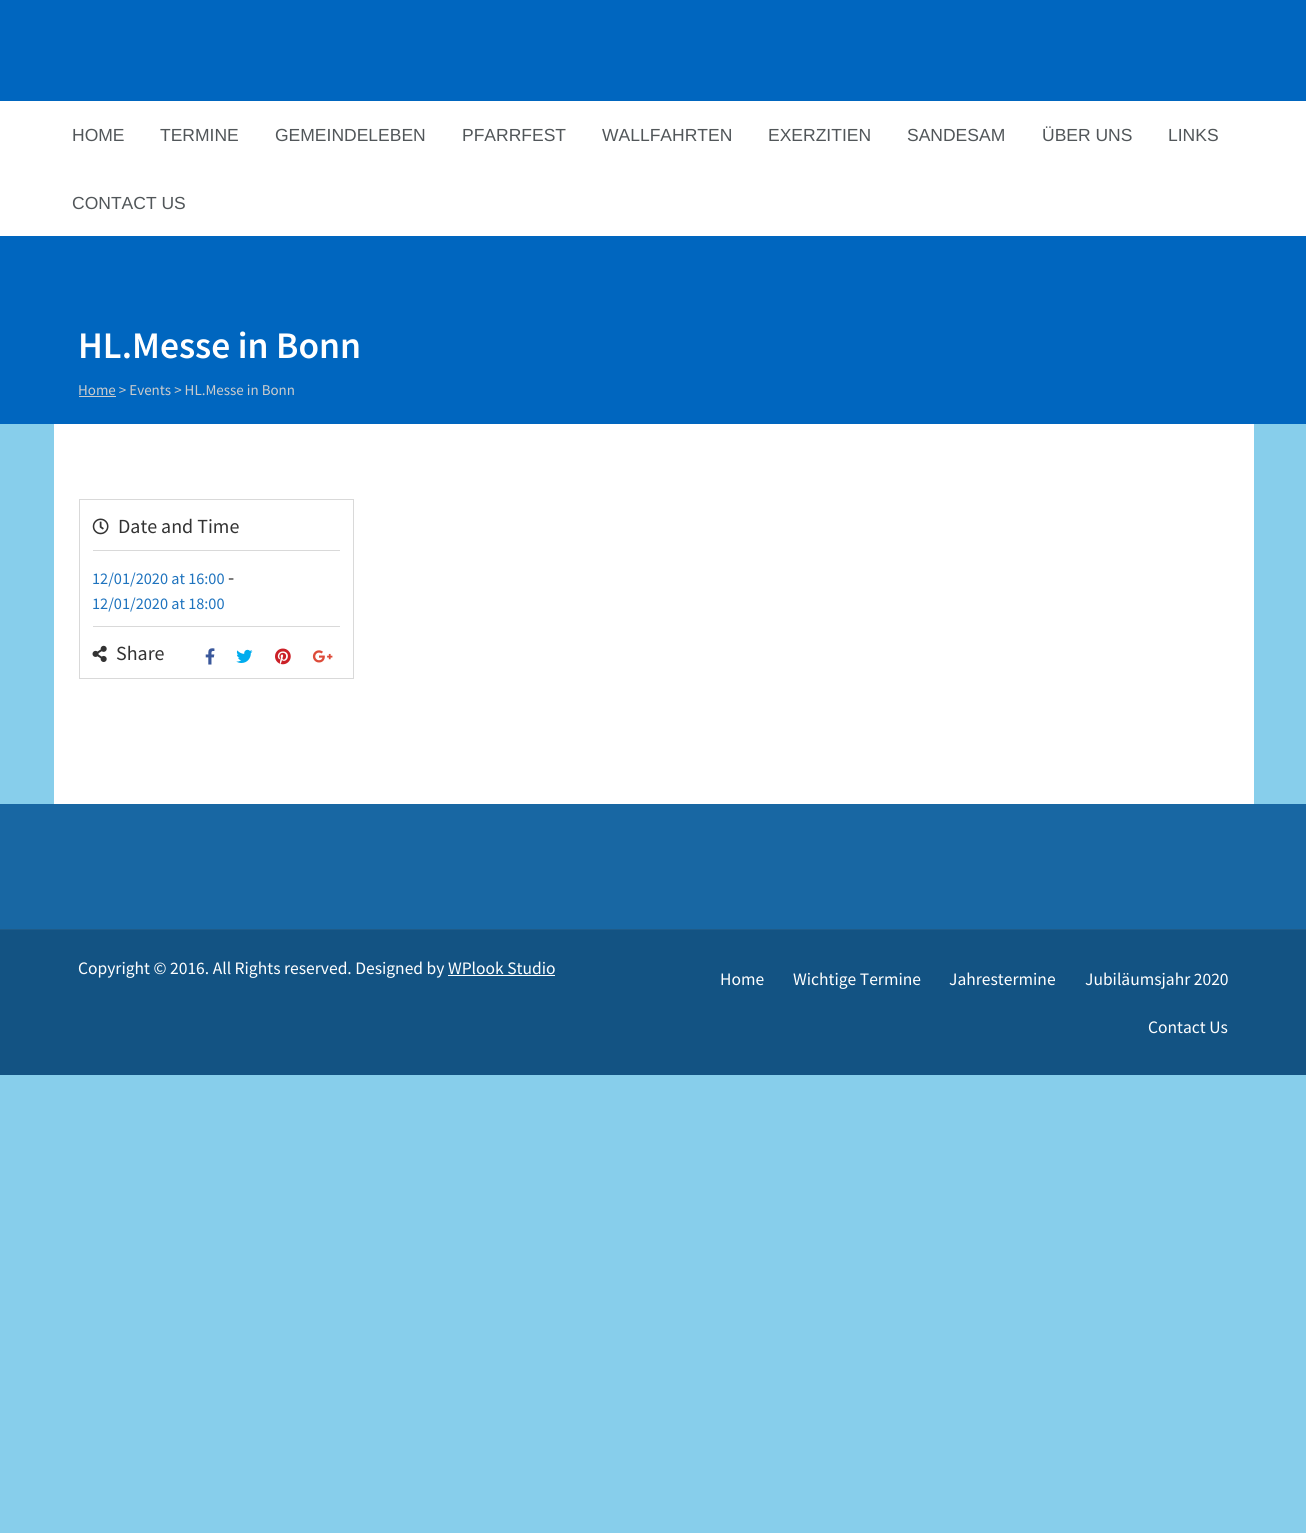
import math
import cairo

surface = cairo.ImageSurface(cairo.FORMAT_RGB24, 1306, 1533)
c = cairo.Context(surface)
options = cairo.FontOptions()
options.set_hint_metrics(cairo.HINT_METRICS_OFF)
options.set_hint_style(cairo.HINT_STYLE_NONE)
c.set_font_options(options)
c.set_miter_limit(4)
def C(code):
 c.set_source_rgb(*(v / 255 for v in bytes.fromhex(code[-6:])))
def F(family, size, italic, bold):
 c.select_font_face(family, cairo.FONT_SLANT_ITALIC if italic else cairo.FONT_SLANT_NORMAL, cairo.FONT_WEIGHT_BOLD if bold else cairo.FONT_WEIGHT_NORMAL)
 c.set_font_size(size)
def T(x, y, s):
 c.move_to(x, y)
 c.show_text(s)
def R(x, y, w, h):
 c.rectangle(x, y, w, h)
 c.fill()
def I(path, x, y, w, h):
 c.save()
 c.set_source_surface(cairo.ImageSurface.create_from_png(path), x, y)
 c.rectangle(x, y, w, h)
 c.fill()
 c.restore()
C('87ceeb')
c.paint()
C('0066bf')
R(0,0,1306,424)
C('ffffff')
R(0,101,1306,135)
F('Liberation Sans',17.5,0,0)
C('515659')
T(72,141,'HOME')
T(160,141,'TERMINE')
T(275,141,'GEMEINDELEBEN')
T(462,141,'PFARRFEST')
T(602,141,'WALLFAHRTEN')
T(768,141,'EXERZITIEN')
T(907,141,'SANDESAM')
T(1042,141,'ÜBER UNS')
T(1168,141,'LINKS')
T(72,209,'CONTACT US')
F('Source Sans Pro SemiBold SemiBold',37.5,0,0)
C('ffffff')
T(78,358,'HL.Messe in Bonn')
F('Source Sans Pro',15,0,0)
C('cccccc')
T(78,395,'Home > Events > HL.Messe in Bonn')
R(79,396,37,1)
C('ffffff')
R(54,424,1200,380)
c.rectangle(79.5,499.5,274,179)
C('d9d9d9')
c.set_line_width(1)
c.stroke()
R(93,550,247,1)
I('1.png',92,518,17,17)
F('Source Sans Pro',20,0,0)
C('333333')
T(118,533,'Date and Time')
C('d9d9d9')
R(93,626,247,1)
F('Source Sans Pro',16.25,0,0)
C('1e73be')
T(92,584,'12/01/2020 at 16:00')
F('Source Sans Pro',20,0,0)
C('333333')
T(228,584,'-')
F('Source Sans Pro',16.25,0,0)
C('1e73be')
T(92,609,'12/01/2020 at 18:00')
I('2.png',92,645,15,17)
F('Source Sans Pro',20,0,0)
C('333333')
T(116,660,'Share')
I('3.png',205,648,10,17)
I('4.png',236,649,17,14)
I('5.png',275,648,16,17)
I('6.png',312,650,21,13)
C('1867a3')
R(0,804,1306,125)
C('135383')
R(0,930,1306,145)
C('1f5c89')
R(0,929,1306,1)
F('Source Sans Pro',17.5,0,0)
C('ffffff')
T(78,974,'Copyright © 2016. All Rights reserved. Designed by WPlook Studio')
R(448,975,107,1)
T(720,985,'Home')
T(793,985,'Wichtige Termine')
T(949,985,'Jahrestermine')
T(1085,985,'Jubiläumsjahr 2020')
T(1148,1033,'Contact Us')
surface.write_to_png('o.png')
